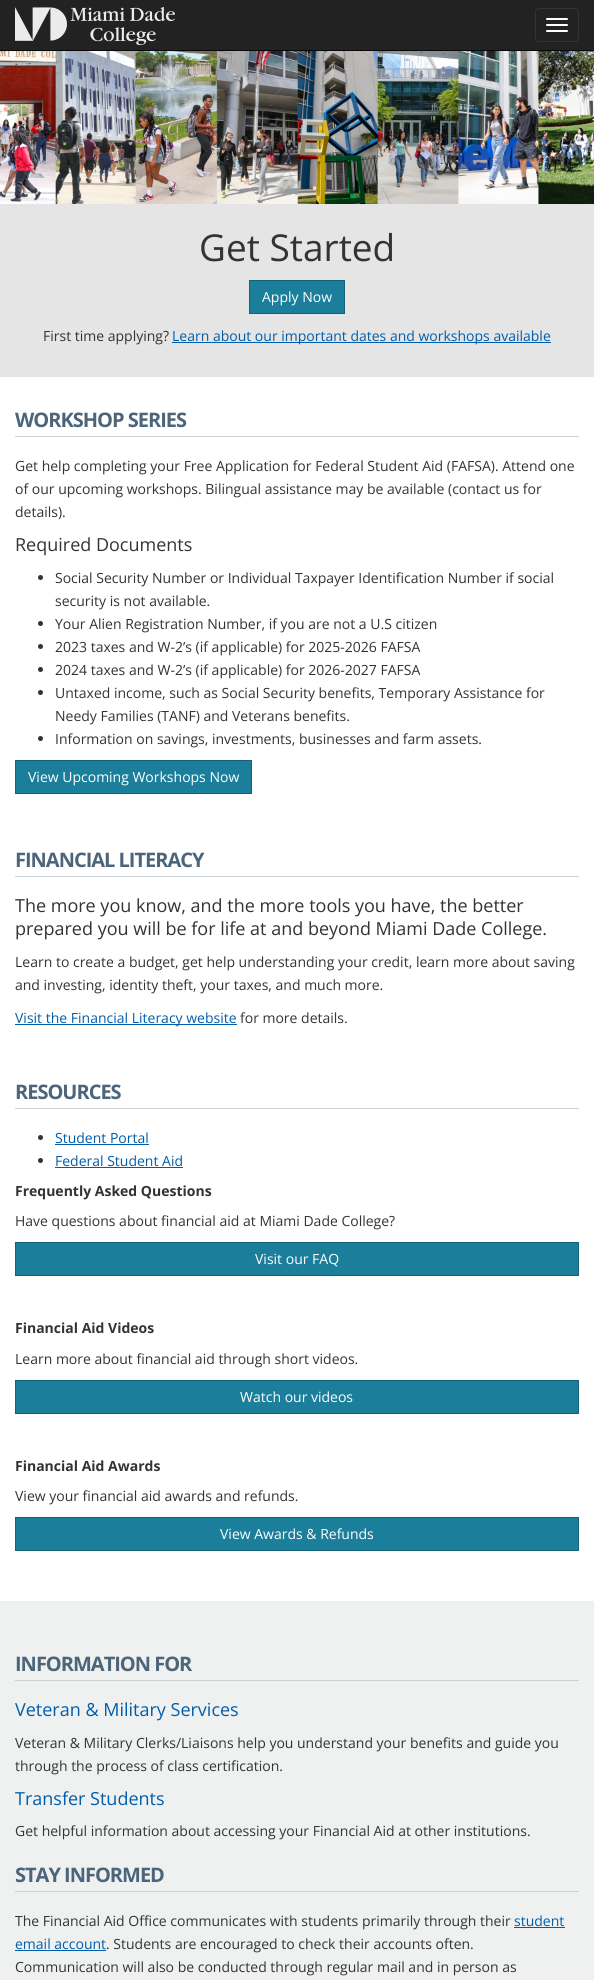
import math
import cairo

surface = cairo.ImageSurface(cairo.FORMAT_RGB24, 594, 1980)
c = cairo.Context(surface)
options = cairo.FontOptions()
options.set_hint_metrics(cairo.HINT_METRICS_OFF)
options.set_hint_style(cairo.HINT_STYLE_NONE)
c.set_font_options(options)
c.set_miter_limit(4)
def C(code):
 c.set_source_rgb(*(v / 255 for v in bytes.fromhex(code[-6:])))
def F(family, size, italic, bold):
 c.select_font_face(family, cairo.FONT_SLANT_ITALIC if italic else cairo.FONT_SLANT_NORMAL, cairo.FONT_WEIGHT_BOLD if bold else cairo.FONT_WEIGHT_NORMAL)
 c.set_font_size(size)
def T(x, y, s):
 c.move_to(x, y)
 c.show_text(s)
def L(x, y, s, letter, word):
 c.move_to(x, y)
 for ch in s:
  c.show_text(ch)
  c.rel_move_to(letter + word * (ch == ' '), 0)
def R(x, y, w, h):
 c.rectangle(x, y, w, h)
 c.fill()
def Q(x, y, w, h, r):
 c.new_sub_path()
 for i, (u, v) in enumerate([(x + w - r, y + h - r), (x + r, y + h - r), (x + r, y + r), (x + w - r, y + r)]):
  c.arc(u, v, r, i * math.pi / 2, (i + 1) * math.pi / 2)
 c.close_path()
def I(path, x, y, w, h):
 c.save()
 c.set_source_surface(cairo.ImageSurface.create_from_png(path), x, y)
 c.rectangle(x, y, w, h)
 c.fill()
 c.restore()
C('ffffff')
c.paint()
C('222222')
R(0,0,594,50)
C('080808')
R(0,50,594,1)
I('1.png',15,7,160,38)
Q(535.5,8.5,43,33,3.5)
C('333333')
c.set_line_width(1)
c.stroke()
C('ffffff')
Q(546,18,22,2,1)
c.fill()
Q(546,24,22,2,1)
c.fill()
Q(546,30,22,2,1)
c.fill()
I('2.png',0,51,594,153)
C('e5e5e5')
R(0,204,594,173)
F('Open Sans',37,0,0)
C('333333')
T(199,261,'Get Started')
C('1b7e9a')
c.rectangle(249.5,280.5,95,33)
c.fill_preserve()
C('156175')
c.stroke()
F('Open Sans',14,0,0)
C('ffffff')
T(262,302,'Apply Now')
C('333333')
T(43,341,'First time applying?')
C('005dab')
R(172,342,379,1)
T(172,341,'Learn about our important dates and workshops available')
C('c9d0d7')
R(15,436,564,1)
F('Open Sans',20,0,1)
C('4d657a')
L(15,427,'WORKSHOP SERIES',-1,0)
F('Open Sans',14,0,0)
C('333333')
T(15,471,'Get help completing your Free Application for Federal Student Aid (FAFSA). Attend one')
T(15,494,'of our upcoming workshops. Bilingual assistance may be available (contact us for')
T(15,517,'details).')
F('Open Sans',18,0,0)
T(15,551,'Required Documents')
c.new_path()
c.arc(40.5,577.5,2.5,0,2 * math.pi)
c.fill()
F('Open Sans',14,0,0)
T(55,583,'Social Security Number or Individual Taxpayer Identification Number if social')
T(55,606,'security is not available.')
c.new_path()
c.arc(40.5,623.5,2.5,0,2 * math.pi)
c.fill()
T(55,629,'Your Alien Registration Number, if you are not a U.S citizen')
c.new_path()
c.arc(40.5,646.5,2.5,0,2 * math.pi)
c.fill()
T(55,652,'2023 taxes and W-2’s (if applicable) for 2025-2026 FAFSA')
c.new_path()
c.arc(40.5,669.5,2.5,0,2 * math.pi)
c.fill()
T(55,675,'2024 taxes and W-2’s (if applicable) for 2026-2027 FAFSA')
c.new_path()
c.arc(40.5,692.5,2.5,0,2 * math.pi)
c.fill()
T(55,698,'Untaxed income, such as Social Security benefits, Temporary Assistance for')
T(55,721,'Needy Families (TANF) and Veterans benefits.')
c.new_path()
c.arc(40.5,738.5,2.5,0,2 * math.pi)
c.fill()
T(55,744,'Information on savings, investments, businesses and farm assets.')
C('1b7e9a')
c.rectangle(15.5,760.5,236,33)
c.fill_preserve()
C('156175')
c.stroke()
C('ffffff')
T(28,782,'View Upcoming Workshops Now')
C('c9d0d7')
R(15,876,564,1)
F('Open Sans',20,0,1)
C('4d657a')
L(15,867,'FINANCIAL LITERACY',-1,0)
F('Open Sans',18,0,0)
C('333333')
T(15,912,'The more you know, and the more tools you have, the better')
T(15,935,'prepared you will be for life at and beyond Miami Dade College.')
F('Open Sans',14,0,0)
T(15,967,'Learn to create a budget, get help understanding your credit, learn more about saving')
T(15,990,'and investing, identity theft, your taxes, and much more.')
C('005dab')
R(15,1024,222,1)
T(15,1023,'Visit the Financial Literacy website')
C('333333')
T(240,1023,'for more details.')
C('c9d0d7')
R(15,1108,564,1)
F('Open Sans',20,0,1)
C('4d657a')
L(15,1099,'RESOURCES',-1,0)
C('333333')
c.new_path()
c.arc(40.5,1137.5,2.5,0,2 * math.pi)
c.fill()
F('Open Sans',14,0,0)
C('005dab')
T(55,1143,'Student Portal')
R(55,1144,94,1)
C('333333')
c.new_path()
c.arc(40.5,1160.5,2.5,0,2 * math.pi)
c.fill()
C('005dab')
T(55,1166,'Federal Student Aid')
R(55,1167,128,1)
F('Open Sans',14,0,1)
C('333333')
T(15,1196,'Frequently Asked Questions')
F('Open Sans',14,0,0)
T(15,1226,'Have questions about financial aid at Miami Dade College?')
C('1b7e9a')
c.rectangle(15.5,1242.5,563,33)
c.fill_preserve()
C('156175')
c.stroke()
C('ffffff')
T(255,1264,'Visit our FAQ')
F('Open Sans',14,0,1)
C('333333')
T(15,1333,'Financial Aid Videos')
F('Open Sans',14,0,0)
T(15,1364,'Learn more about financial aid through short videos.')
C('1b7e9a')
c.rectangle(15.5,1380.5,563,33)
c.fill_preserve()
C('156175')
c.stroke()
C('ffffff')
T(240,1402,'Watch our videos')
F('Open Sans',14,0,1)
C('333333')
T(15,1471,'Financial Aid Awards')
F('Open Sans',14,0,0)
T(15,1501,'View your financial aid awards and refunds.')
C('1b7e9a')
c.rectangle(15.5,1517.5,563,33)
c.fill_preserve()
C('156175')
c.stroke()
C('ffffff')
T(220,1539,'View Awards & Refunds')
C('eff1f1')
R(0,1601,594,379)
C('c9d0d7')
R(15,1680,564,1)
F('Open Sans',20,0,1)
C('4d657a')
L(15,1671,'INFORMATION FOR',-1,0)
F('Open Sans',18,0,0)
C('005dab')
T(15,1716,'Veteran & Military Services')
F('Open Sans',14,0,0)
C('333333')
T(15,1748,'Veteran & Military Clerks/Liaisons help you understand your benefits and guide you')
T(15,1771,'through the process of class certification.')
F('Open Sans',18,0,0)
C('005dab')
T(15,1805,'Transfer Students')
F('Open Sans',14,0,0)
C('333333')
T(15,1836,'Get helpful information about accessing your Financial Aid at other institutions.')
C('c9d0d7')
R(15,1891,564,1)
F('Open Sans',20,0,1)
C('4d657a')
L(15,1882,'STAY INFORMED',-1,0)
F('Open Sans',14,0,0)
C('333333')
T(15,1926,'The Financial Aid Office communicates with students primarily through their')
C('005dab')
T(514,1926,'student')
R(514,1927,51,1)
T(15,1949,'email account')
R(15,1950,91,1)
C('333333')
T(106,1949,'. Students are encouraged to check their accounts often.')
T(15,1972,'Communication will also be conducted through regular mail and in person as')
surface.write_to_png('o.png')
